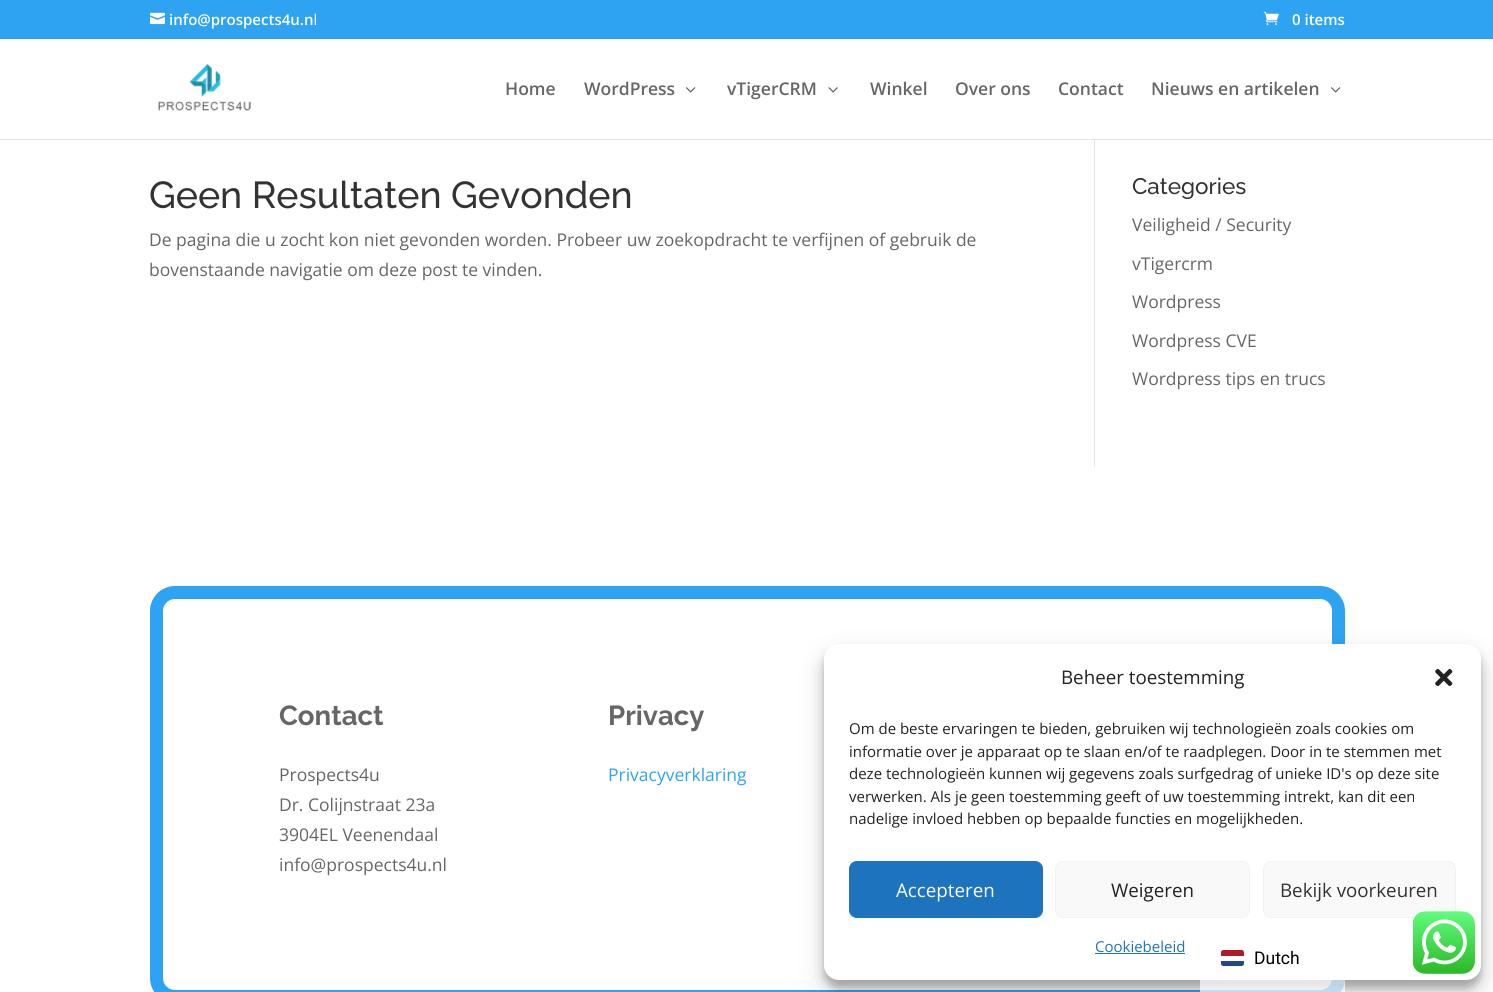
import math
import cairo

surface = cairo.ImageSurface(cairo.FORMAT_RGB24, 1493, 992)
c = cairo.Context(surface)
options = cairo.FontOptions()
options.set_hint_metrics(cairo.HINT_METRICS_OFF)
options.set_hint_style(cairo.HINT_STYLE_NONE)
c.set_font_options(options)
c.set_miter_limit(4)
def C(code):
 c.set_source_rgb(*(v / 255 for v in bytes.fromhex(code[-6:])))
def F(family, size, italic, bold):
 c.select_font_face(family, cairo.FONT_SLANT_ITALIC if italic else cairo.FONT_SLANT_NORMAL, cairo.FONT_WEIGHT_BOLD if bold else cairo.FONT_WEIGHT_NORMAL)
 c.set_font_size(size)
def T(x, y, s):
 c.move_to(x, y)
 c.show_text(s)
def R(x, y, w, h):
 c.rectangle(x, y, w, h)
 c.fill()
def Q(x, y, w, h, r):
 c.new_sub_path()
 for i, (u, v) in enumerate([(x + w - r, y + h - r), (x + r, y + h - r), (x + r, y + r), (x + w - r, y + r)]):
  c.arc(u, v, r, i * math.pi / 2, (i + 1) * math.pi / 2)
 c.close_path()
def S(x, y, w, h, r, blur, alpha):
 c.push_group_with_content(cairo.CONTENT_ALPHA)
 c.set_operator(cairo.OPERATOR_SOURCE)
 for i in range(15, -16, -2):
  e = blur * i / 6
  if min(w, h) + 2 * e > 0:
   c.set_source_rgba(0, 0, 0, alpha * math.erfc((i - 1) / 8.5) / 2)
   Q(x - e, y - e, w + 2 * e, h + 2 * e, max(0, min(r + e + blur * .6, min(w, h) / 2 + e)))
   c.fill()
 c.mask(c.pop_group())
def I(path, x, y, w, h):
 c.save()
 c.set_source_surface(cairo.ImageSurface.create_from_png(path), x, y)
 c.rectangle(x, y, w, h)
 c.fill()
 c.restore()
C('ffffff')
c.paint()
C('2ea3f2')
R(0,0,1493,39)
I('1.png',150,12,15,13)
F('Open Sans SemiBold',15,0,0)
C('ffffff')
T(169,25,'info@prospects4u.nl')
I('2.png',1263,11,16,14)
T(1292,25,'0 items')
C('e2e2e2')
R(1094,139,1,327)
c.set_source_rgba(0,0,0,0.1)
c.new_path()
c.move_to(0,139)
c.line_to(0,140)
c.line_to(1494,140)
c.line_to(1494,40)
c.line_to(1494,139)
c.close_path()
c.fill()
I('3.png',157,63,94,48)
F('Open Sans SemiBold',17.5,0,0)
C('666666')
T(505,95,'Home')
T(584,95,'WordPress')
I('4.png',686,87,10,6)
T(727,95,'vTigerCRM')
I('5.png',828,87,10,6)
T(870,95,'Winkel')
T(955,95,'Over ons')
T(1058,95,'Contact')
T(1151,95,'Nieuws en artikelen')
I('4.png',1331,87,10,6)
F('Raleway Medium',37.5,0,0)
C('333333')
T(149,208,'Geen Resultaten Gevonden')
F('Open Sans',17.5,0,0)
C('666666')
T(149,246,'De pagina die u zocht kon niet gevonden worden. Probeer uw zoekopdracht te verfijnen of gebruik de')
T(149,276,'bovenstaande navigatie om deze post te vinden.')
F('Raleway Medium',22.5,0,0)
C('333333')
T(1132,194,'Categories')
F('Open Sans',17.5,0,0)
C('666666')
T(1132,231,'Veiligheid / Security')
T(1132,270,'vTigercrm')
T(1132,308,'Wordpress')
T(1132,347,'Wordpress CVE')
T(1132,385,'Wordpress tips en trucs')
Q(156.5,592.5,1182,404,18.5)
C('2ea3f2')
c.set_line_width(13)
c.stroke()
F('Raleway',27.5,0,1)
C('666666')
T(279,725,'Contact')
F('Open Sans',17.5,0,0)
T(279,781,'Prospects4u')
T(279,811,'Dr. Colijnstraat 23a')
T(279,841,'3904EL Veenendaal')
T(279,871,'info@prospects4u.nl')
F('Raleway',27.5,0,1)
T(608,725,'Privacy')
F('Open Sans',17.5,0,0)
C('2ea3f2')
T(608,781,'Privacyverklaring')
C('000000')
S(824,651,657,337,15,4,.23)
S(824,656,657,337,15,12.5,.19)
C('ffffff')
Q(824,644,657,336,15)
c.fill()
F('Open Sans',18.75,0,0)
C('222222')
T(1061,684,'Beheer toestemming')
I('6.png',1435,668,18,19)
F('Open Sans',15,0,0)
T(849,734,'Om de beste ervaringen te bieden, gebruiken wij technologieën zoals cookies om')
T(849,757,'informatie over je apparaat op te slaan en/of te raadplegen. Door in te stemmen met')
T(849,779,'deze technologieën kunnen wij gegevens zoals surfgedrag of unieke ID\'s op deze site')
T(849,802,'verwerken. Als je geen toestemming geeft of uw toestemming intrekt, kan dit een')
T(849,824,'nadelige invloed hebben op bepaalde functies en mogelijkheden.')
C('1e73be')
Q(849.5,861.5,193,56,7.5)
c.fill_preserve()
c.set_line_width(1)
c.stroke()
F('Open Sans',18.75,0,0)
C('ffffff')
T(896,897,'Accepteren')
C('f9f9f9')
Q(1055.5,861.5,194,56,7.5)
c.fill_preserve()
C('f2f2f2')
c.stroke()
C('222222')
T(1111,897,'Weigeren')
C('f9f9f9')
Q(1263.5,861.5,192,56,7.5)
c.fill_preserve()
C('f2f2f2')
c.stroke()
C('333333')
T(1280,897,'Bekijk voorkeuren')
F('Open Sans',15,0,0)
C('1e73be')
T(1095,952,'Cookiebeleid')
R(1095,953,90,1)
I('7.png',1413,911,62,63)
c.set_source_rgba(1,1,1,0.7)
c.new_path()
c.move_to(1210,924)
c.line_to(1335,924)
c.curve_to(1340.5,924,1345,928.5,1345,934)
c.line_to(1345,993)
c.line_to(1200,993)
c.line_to(1200,934)
c.curve_to(1200,928.5,1204.5,924,1210,924)
c.close_path()
c.fill()
C('ae1c28')
c.new_path()
c.move_to(1223.5,950)
c.line_to(1241.5,950)
c.curve_to(1243,950,1244,951,1244,952.5)
c.line_to(1244,956)
c.line_to(1221,956)
c.line_to(1221,952.5)
c.curve_to(1221,951,1222,950,1223.5,950)
c.close_path()
c.fill()
C('21468b')
c.new_path()
c.move_to(1221,961)
c.line_to(1244,961)
c.line_to(1244,963.5)
c.curve_to(1244,965,1243,966,1241.5,966)
c.line_to(1223.5,966)
c.curve_to(1222,966,1221,965,1221,963.5)
c.close_path()
c.fill()
F('Roboto',17.5,0,0)
C('000000')
T(1254,964,'Dutch')
surface.write_to_png('o.png')
